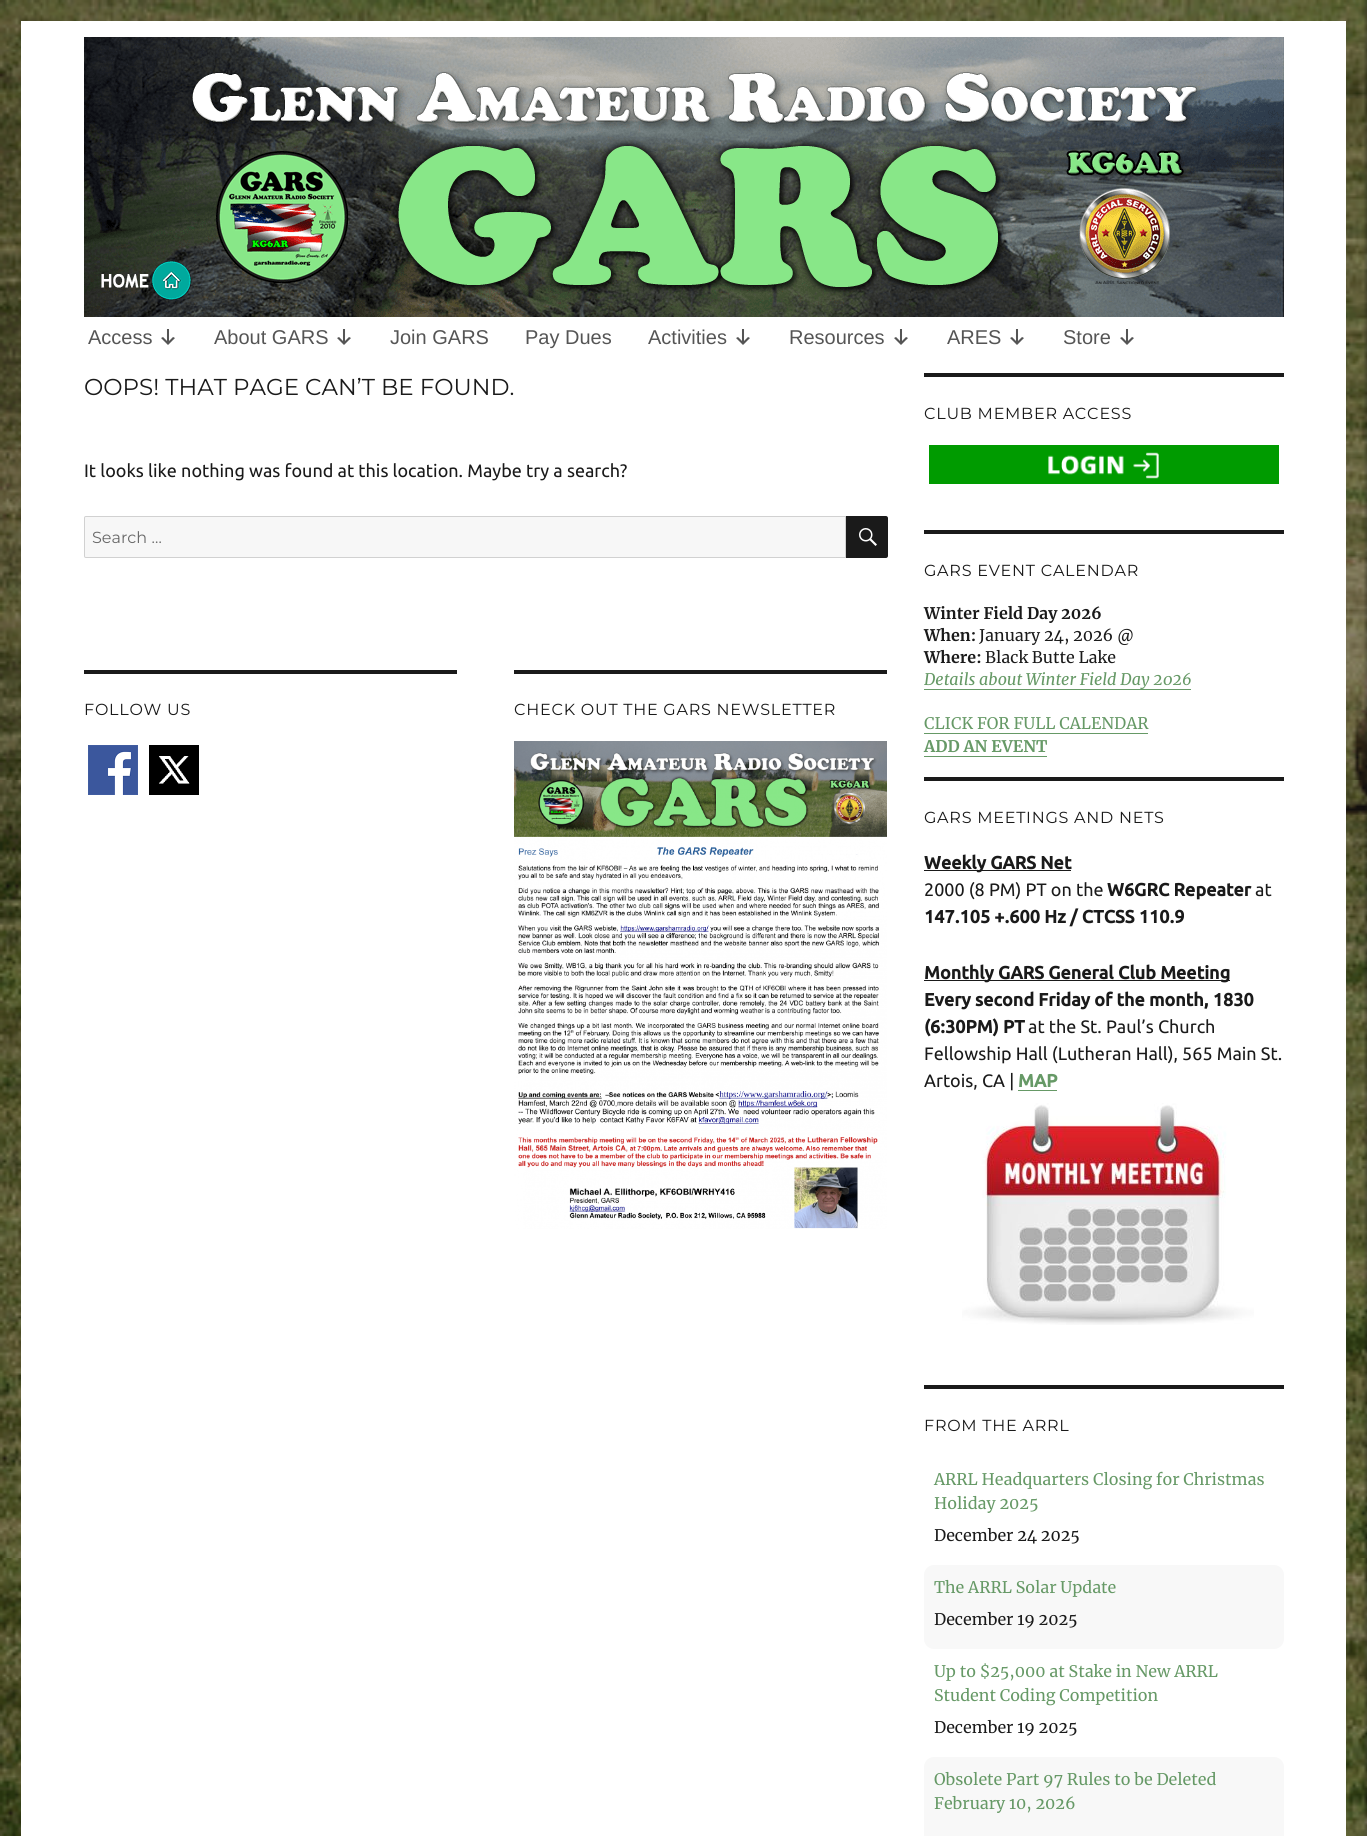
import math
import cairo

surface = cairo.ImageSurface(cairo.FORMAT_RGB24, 1367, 1836)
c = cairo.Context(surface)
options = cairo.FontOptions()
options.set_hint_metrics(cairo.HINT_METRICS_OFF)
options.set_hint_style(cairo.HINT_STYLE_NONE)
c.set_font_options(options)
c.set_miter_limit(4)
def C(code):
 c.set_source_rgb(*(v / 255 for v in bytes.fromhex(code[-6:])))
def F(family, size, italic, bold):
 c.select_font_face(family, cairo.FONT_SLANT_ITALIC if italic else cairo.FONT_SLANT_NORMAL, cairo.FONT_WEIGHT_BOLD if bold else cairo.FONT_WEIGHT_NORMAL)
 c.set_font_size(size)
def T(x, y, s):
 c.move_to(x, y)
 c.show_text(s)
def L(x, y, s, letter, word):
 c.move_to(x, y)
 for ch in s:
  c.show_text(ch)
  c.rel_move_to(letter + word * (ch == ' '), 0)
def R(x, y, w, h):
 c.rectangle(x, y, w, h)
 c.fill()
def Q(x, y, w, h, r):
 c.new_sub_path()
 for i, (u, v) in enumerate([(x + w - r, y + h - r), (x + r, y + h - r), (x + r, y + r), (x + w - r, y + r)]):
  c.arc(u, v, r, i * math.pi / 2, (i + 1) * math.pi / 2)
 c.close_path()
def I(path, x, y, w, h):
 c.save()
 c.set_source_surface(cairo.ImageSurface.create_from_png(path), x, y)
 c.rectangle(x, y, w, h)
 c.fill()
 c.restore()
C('1a1a1a')
c.paint()
I('1.png',0,0,1367,1836)
C('ffffff')
R(21,21,1325,1815)
I('2.png',84,37,1200,280)
F('Liberation Sans',20,0,0)
C('555555')
T(88,344,'Access')
I('3.png',161,329,14,16)
T(214,344,'About GARS')
I('3.png',337,329,14,16)
T(390,344,'Join GARS')
T(525,344,'Pay Dues')
T(648,344,'Activities')
I('3.png',736,329,14,16)
T(789,344,'Resources')
I('3.png',894,329,14,16)
T(947,344,'ARES')
I('3.png',1010,329,14,16)
T(1063,344,'Store')
I('3.png',1120,329,14,16)
F('Montserrat Thin',23,0,0)
C('1a1a1a')
T(84,395,'OOPS! THAT PAGE CAN’T BE FOUND.')
F('Ubuntu',18,0,0)
T(84,477,'It looks like nothing was found at this location. Maybe try a search?')
C('f7f7f7')
c.new_path()
c.move_to(86,516.5)
c.line_to(845.5,516.5)
c.line_to(845.5,557.5)
c.line_to(86,557.5)
c.curve_to(85,557.5,84.5,557,84.5,556)
c.line_to(84.5,518)
c.curve_to(84.5,517,85,516.5,86,516.5)
c.close_path()
c.fill_preserve()
C('d1d1d1')
c.set_line_width(1)
c.stroke()
F('Montserrat Thin',16,0,0)
C('686868')
T(92,543,'Search …')
C('1a1a1a')
c.new_path()
c.move_to(846,516)
c.line_to(886,516)
c.curve_to(887,516,888,517,888,518)
c.line_to(888,556)
c.curve_to(888,557,887,558,886,558)
c.line_to(846,558)
c.close_path()
c.fill()
I('4.png',859,528,18,18)
R(84,670,373,4)
L(84,715,'FOLLOW US',.75,0)
I('5.png',88,745,50,50)
I('6.png',149,745,50,50)
R(514,670,373,4)
L(514,715,'CHECK OUT THE GARS NEWSLETTER',.75,0)
I('7.png',514,741,373,488)
R(924,373,360,4)
L(924,419,'CLUB MEMBER ACCESS',.75,0)
I('8.png',929,445,350,39)
R(924,530,360,4)
L(924,576,'GARS EVENT CALENDAR',.75,0)
F('Merriweather',16,0,1)
T(924,619,'Winter Field Day 2026')
T(924,641,'When:')
F('Merriweather',16,0,0)
T(979,641,'January 24, 2026 @')
F('Merriweather',16,0,1)
T(924,663,'Where:')
F('Merriweather',16,0,0)
T(985,663,'Black Butte Lake')
F('Merriweather',16,1,0)
C('669966')
T(924,685,'Details about Winter Field Day 2026')
R(924,689,267,1)
F('Merriweather',16,0,0)
T(924,729,'CLICK FOR FULL CALENDAR')
R(924,733,224,1)
F('Merriweather',16,0,1)
T(924,752,'ADD AN EVENT')
R(924,756,123,1)
C('1a1a1a')
R(924,777,360,4)
F('Montserrat Thin',16,0,0)
L(924,823,'GARS MEETINGS AND NETS',.75,0)
R(924,870,147,1)
F('Ubuntu',18,0,1)
T(924,869,'Weekly GARS Net')
F('Ubuntu',18,0,0)
T(924,896,'2000 (8 PM) PT on the')
F('Ubuntu',18,0,1)
T(1107,896,'W6GRC Repeater')
F('Ubuntu',18,0,0)
T(1255,896,'at')
F('Ubuntu',18,0,1)
T(924,923,'147.105 +.600 Hz / CTCSS 110.9')
R(924,980,306,1)
T(924,979,'Monthly GARS General Club Meeting')
T(924,1006,'Every second Friday of the month, 1830')
T(924,1033,'(6:30PM) PT')
F('Ubuntu',18,0,0)
T(1028,1033,'at the St. Paul’s Church')
T(924,1060,'Fellowship Hall (Lutheran Hall), 565 Main St.')
T(924,1087,'Artois, CA |')
F('Ubuntu',18,0,1)
C('669966')
T(1018,1087,'MAP')
R(1018,1090,39,1)
I('9.png',962,1103,292,222)
C('1a1a1a')
R(924,1385,360,4)
F('Montserrat Thin',16,0,0)
L(924,1431,'FROM THE ARRL',.75,0)
F('Merriweather',16,0,0)
C('669966')
T(934,1485,'ARRL Headquarters Closing for Christmas')
T(934,1509,'Holiday 2025')
C('1a1a1a')
T(934,1541,'December 24 2025')
C('f8f8f8')
Q(924,1565,360,84,10)
c.fill()
C('669966')
T(934,1593,'The ARRL Solar Update')
C('1a1a1a')
T(934,1625,'December 19 2025')
C('669966')
T(934,1677,'Up to $25,000 at Stake in New ARRL')
T(934,1701,'Student Coding Competition')
C('1a1a1a')
T(934,1733,'December 19 2025')
C('f8f8f8')
Q(924,1757,360,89,10)
c.fill()
C('669966')
T(934,1785,'Obsolete Part 97 Rules to be Deleted')
T(934,1809,'February 10, 2026')
surface.write_to_png('o.png')
